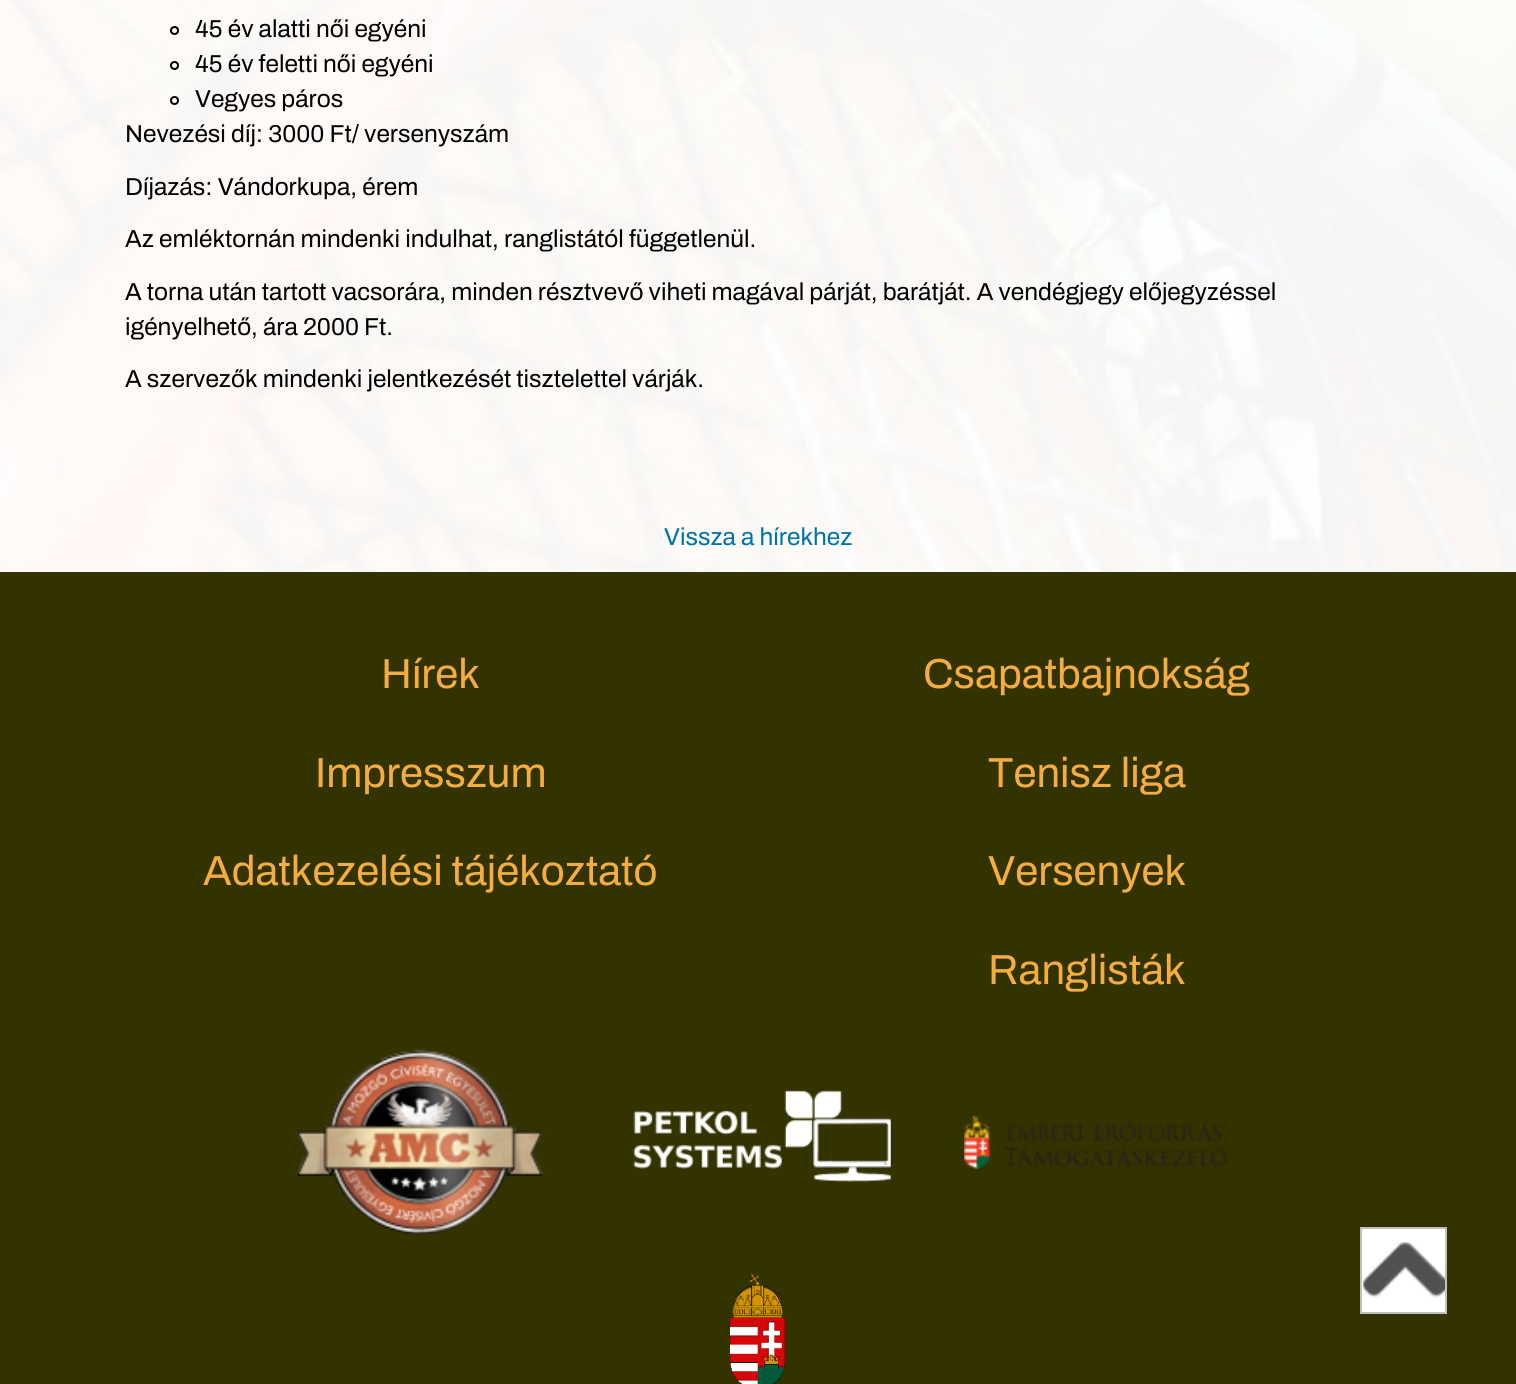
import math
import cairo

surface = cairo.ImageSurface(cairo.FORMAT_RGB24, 1516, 1384)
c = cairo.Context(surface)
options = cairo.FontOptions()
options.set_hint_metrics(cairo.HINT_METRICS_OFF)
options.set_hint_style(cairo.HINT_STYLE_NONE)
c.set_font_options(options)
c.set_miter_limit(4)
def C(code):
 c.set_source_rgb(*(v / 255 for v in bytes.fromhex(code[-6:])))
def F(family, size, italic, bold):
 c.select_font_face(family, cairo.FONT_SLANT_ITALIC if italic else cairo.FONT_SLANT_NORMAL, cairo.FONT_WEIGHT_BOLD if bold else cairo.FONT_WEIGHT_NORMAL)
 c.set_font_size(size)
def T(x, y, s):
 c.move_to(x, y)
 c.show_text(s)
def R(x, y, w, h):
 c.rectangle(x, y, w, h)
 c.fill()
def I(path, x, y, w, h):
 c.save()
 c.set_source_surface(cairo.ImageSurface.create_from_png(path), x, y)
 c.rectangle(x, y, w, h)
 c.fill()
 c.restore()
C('ffffff')
c.paint()
I('1.png',0,0,1516,572)
c.arc(174.5,30.5,3.5,0,2 * math.pi)
C('000000')
c.stroke()
F('Archivo SemiBold',24.5,0,0)
T(195,37,'45 év alatti női egyéni')
c.new_path()
c.arc(174.5,65.5,3.5,0,2 * math.pi)
c.stroke()
T(195,72,'45 év feletti női egyéni')
c.new_path()
c.arc(174.5,100.5,3.5,0,2 * math.pi)
c.stroke()
T(195,107,'Vegyes páros')
T(125,142,'Nevezési díj: 3000 Ft/ versenyszám')
T(125,195,'Díjazás: Vándorkupa, érem')
T(125,247,'Az emléktornán mindenki indulhat, ranglistától függetlenül.')
T(125,300,'A torna után tartott vacsorára, minden résztvevő viheti magával párját, barátját. A vendégjegy előjegyzéssel')
T(125,335,'igényelhető, ára 2000 Ft.')
T(125,387,'A szervezők mindenki jelentkezését tisztelettel várják.')
C('0073aa')
T(664,545,'Vissza a hírekhez')
C('333300')
R(0,572,1516,812)
F('Archivo SemiBold',42,0,0)
C('f5ad41')
T(381,688,'Hírek')
T(315,787,'Impresszum')
T(203,885,'Adatkezelési tájékoztató')
T(923,688,'Csapatbajnokság')
T(988,787,'Tenisz liga')
T(988,885,'Versenyek')
T(988,984,'Ranglisták')
I('2.png',295,1049,250,186)
I('3.png',633,1090,258,92)
I('4.png',964,1116,263,53)
I('5.png',730,1273,56,111)
C('ffffff')
R(1362,1229,83,83)
I('6.png',1362,1242,86,56)
c.rectangle(1361,1228,85,85)
C('c0c0c0')
c.stroke()
surface.write_to_png('o.png')
